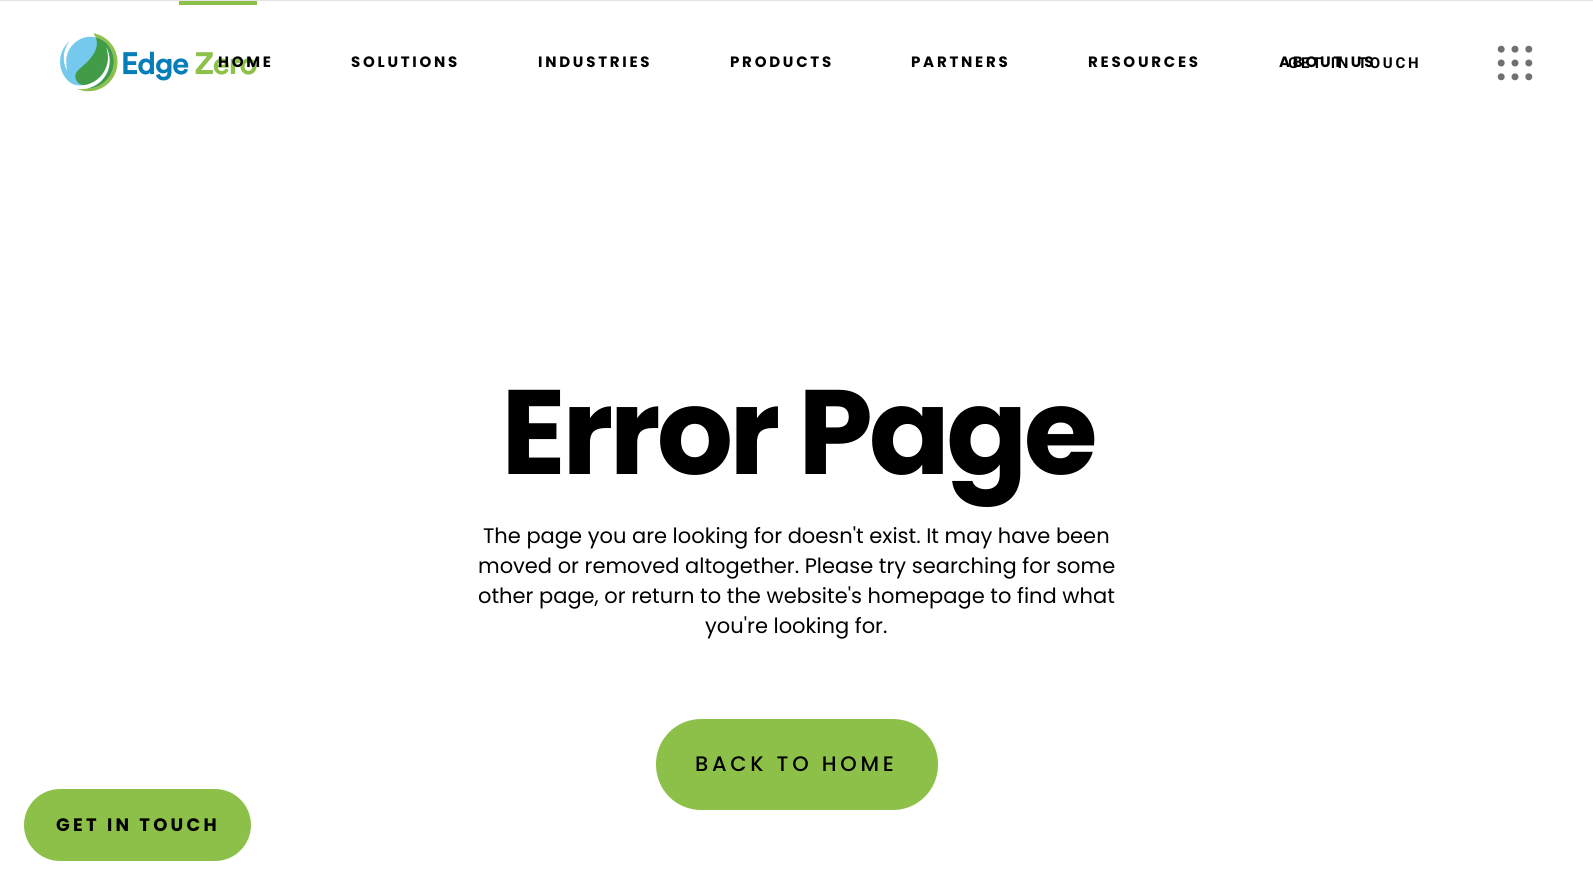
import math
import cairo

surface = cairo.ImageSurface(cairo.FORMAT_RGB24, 1593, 884)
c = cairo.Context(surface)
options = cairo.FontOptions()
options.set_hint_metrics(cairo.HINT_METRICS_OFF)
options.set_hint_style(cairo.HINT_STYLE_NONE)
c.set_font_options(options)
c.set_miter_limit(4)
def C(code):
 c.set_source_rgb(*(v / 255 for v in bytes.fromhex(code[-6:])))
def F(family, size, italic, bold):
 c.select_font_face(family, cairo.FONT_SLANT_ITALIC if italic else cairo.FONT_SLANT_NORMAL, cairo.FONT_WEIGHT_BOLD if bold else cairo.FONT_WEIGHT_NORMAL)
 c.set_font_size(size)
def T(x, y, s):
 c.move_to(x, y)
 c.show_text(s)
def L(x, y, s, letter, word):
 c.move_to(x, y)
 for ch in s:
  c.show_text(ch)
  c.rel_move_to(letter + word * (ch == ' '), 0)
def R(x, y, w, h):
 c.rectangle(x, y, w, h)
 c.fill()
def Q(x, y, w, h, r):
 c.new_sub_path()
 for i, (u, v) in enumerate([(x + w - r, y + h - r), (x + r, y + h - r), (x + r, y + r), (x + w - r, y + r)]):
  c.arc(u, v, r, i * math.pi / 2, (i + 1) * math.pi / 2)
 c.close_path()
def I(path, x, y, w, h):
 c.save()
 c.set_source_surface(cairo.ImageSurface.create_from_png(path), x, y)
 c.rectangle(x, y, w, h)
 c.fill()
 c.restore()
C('ffffff')
c.paint()
C('e4e4e4')
R(0,0,1593,1)
I('1.png',60,33,197,59)
C('8dc049')
R(179,1,78,4)
F('Poppins',15,0,1)
C('000000')
L(218,67,'HOME',2.75,0)
L(351,67,'SOLUTIONS',2.75,0)
L(538,67,'INDUSTRIES',2.75,0)
L(730,67,'PRODUCTS',2.75,0)
L(911,67,'PARTNERS',2.75,0)
L(1088,67,'RESOURCES',2.75,0)
L(1279,67,'ABOUT US',2.75,0)
c.save()
c.rectangle(1289,53,132,24)
c.clip()
F('Roboto',15,0,1)
L(1288,68,'GET IN TOUCH',2.75,0)
c.restore()
I('2.png',1497,45,36,36)
F('Poppins',120,0,1)
L(501,474,'Error Page',-4,0)
F('Poppins',21,0,0)
T(483,543,'The page you are looking for doesn\'t exist. It may have been')
T(478,573,'moved or removed altogether. Please try searching for some')
T(478,603,'other page, or return to the website\'s homepage to find what')
T(705,633,'you\'re looking for.')
C('8dc049')
Q(656,719,282,91,45)
c.fill()
F('Poppins Medium',21,0,0)
C('000000')
L(695,771,'BACK TO HOME',3.75,0)
C('8dc049')
Q(24,789,227,72,36)
c.fill()
F('Poppins',18,0,1)
C('000000')
L(56,831,'GET IN TOUCH',3.25,0)
surface.write_to_png('o.png')
